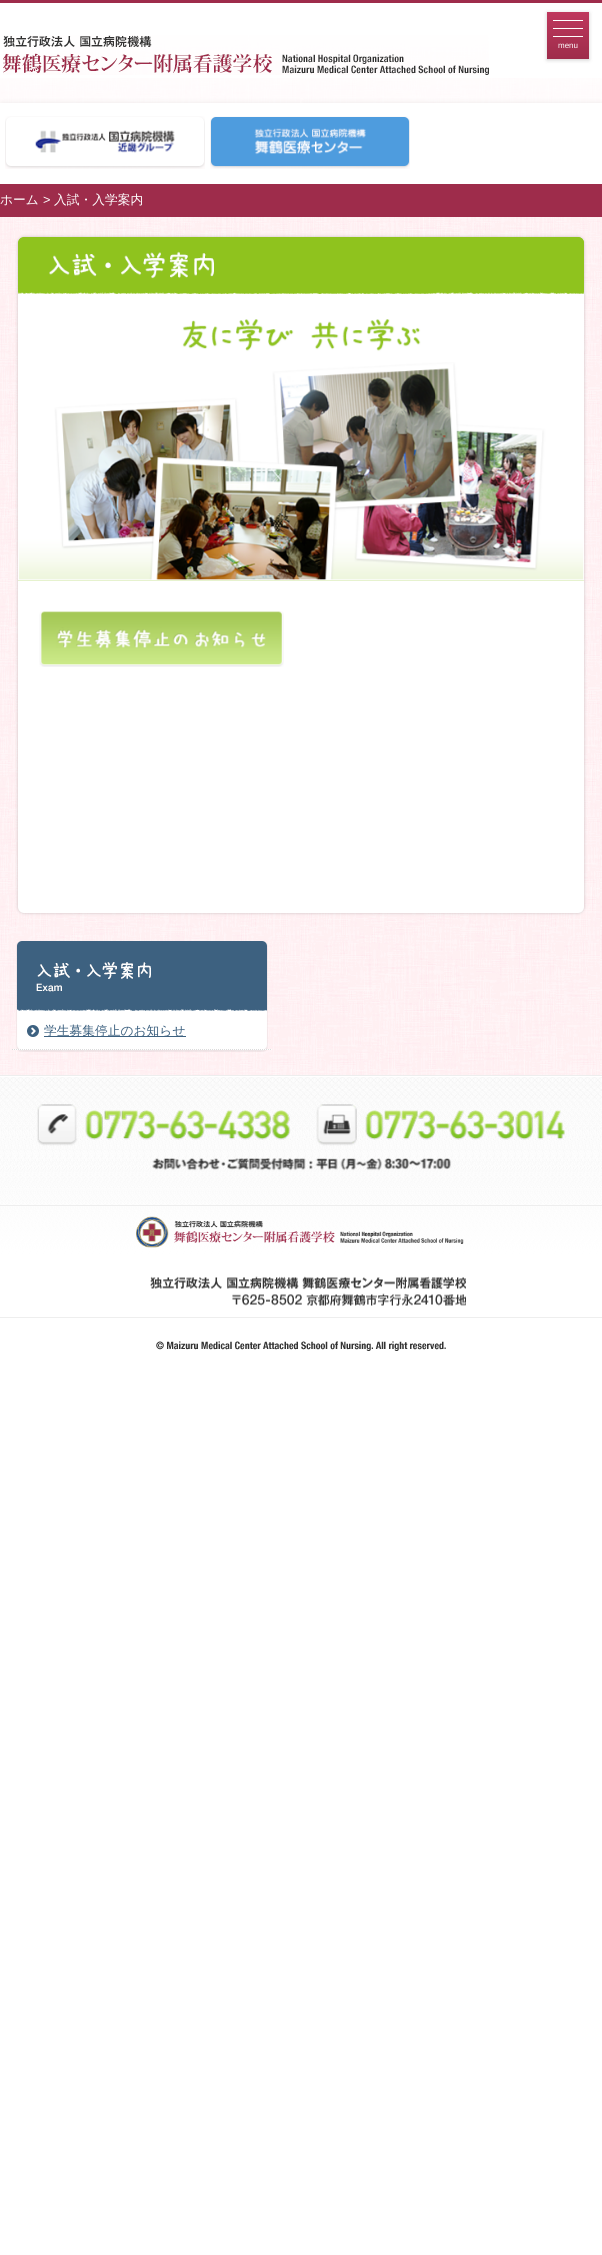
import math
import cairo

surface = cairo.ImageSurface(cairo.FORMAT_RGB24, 602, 2255)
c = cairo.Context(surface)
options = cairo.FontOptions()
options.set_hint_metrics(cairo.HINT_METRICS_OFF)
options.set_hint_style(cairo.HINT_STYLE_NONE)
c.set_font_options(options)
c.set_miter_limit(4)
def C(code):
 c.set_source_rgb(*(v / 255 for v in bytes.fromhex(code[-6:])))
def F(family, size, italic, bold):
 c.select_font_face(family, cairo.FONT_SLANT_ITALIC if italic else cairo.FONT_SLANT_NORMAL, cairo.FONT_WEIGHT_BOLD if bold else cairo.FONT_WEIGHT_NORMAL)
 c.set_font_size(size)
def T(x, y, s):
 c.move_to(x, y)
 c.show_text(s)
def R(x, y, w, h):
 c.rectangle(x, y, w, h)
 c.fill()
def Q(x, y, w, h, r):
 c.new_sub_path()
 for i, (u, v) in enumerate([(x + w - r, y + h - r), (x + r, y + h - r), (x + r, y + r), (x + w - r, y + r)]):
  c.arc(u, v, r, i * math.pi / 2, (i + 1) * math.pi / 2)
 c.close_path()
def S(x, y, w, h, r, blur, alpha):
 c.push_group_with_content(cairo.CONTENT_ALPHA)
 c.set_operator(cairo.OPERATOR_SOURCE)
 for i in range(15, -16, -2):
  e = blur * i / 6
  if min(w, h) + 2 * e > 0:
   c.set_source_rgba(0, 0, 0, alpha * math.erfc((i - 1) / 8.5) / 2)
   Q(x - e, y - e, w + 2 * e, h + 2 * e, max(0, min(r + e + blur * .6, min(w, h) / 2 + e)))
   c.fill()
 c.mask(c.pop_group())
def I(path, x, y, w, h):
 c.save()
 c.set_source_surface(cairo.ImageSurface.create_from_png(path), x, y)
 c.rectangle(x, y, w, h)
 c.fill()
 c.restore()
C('ffffff')
c.paint()
I('1.png',0,78,602,25)
C('9e2c4b')
R(0,0,602,3)
I('2.png',3,35,486,40)
I('3.png',5,116,200,53)
I('4.png',210,116,200,53)
C('000000')
S(547,13,42,47,0,2,.2)
gradient = cairo.LinearGradient(568,12,568,59)
gradient.add_color_stop_rgba(0,0.749,0.22,0.365,1)
gradient.add_color_stop_rgba(1,0.62,0.173,0.294,1)
c.set_source(gradient)
R(547,12,42,47)
C('ffffff')
R(553,20,30,1)
R(553,28,30,1)
R(553,36,30,1)
F('Liberation Sans',8,0,0)
T(558,48,'menu')
C('9e2c4b')
R(0,184,602,33)
F('WenQuanYi Zen Hei Medium',12.75,0,0)
C('ffffff')
T(0,204,'ホーム')
F('Liberation Sans',12.75,0,0)
T(43,204,'>')
F('WenQuanYi Zen Hei Medium',12.75,0,0)
T(54,204,'入試・入学案内')
I('5.png',0,217,602,858)
C('848282')
S(18,237,566,676,6,1.5,.44)
C('ffffff')
Q(18,237,566,676,6)
c.fill()
c.save()
Q(18,237,566,676,6)
c.clip()
C('8fc31f')
c.new_path()
c.move_to(24,237)
c.line_to(581,237)
c.curve_to(584.5,237,587,239.5,587,243)
c.line_to(587,294)
c.line_to(18,294)
c.line_to(18,243)
c.curve_to(18,239.5,20.5,237,24,237)
c.close_path()
c.fill()
c.restore()
I('6.png',18,237,566,57)
I('7.png',18,319,566,262)
I('8.png',39,611,245,56)
I('9.png',16,941,252,70)
I('10.png',16,1011,252,41)
I('11.png',12,1049,260,1)
I('12.png',27,1025,12,12)
C('3d6180')
R(44,1036,142,1)
T(44,1035,'学生募集停止のお知らせ')
I('13.png',0,1075,602,243)
I('14.png',37,1104,528,67)
I('15.png',136,1216,328,32)
I('16.png',150,1276,316,31)
I('17.png',156,1341,290,10)
surface.write_to_png('o.png')
